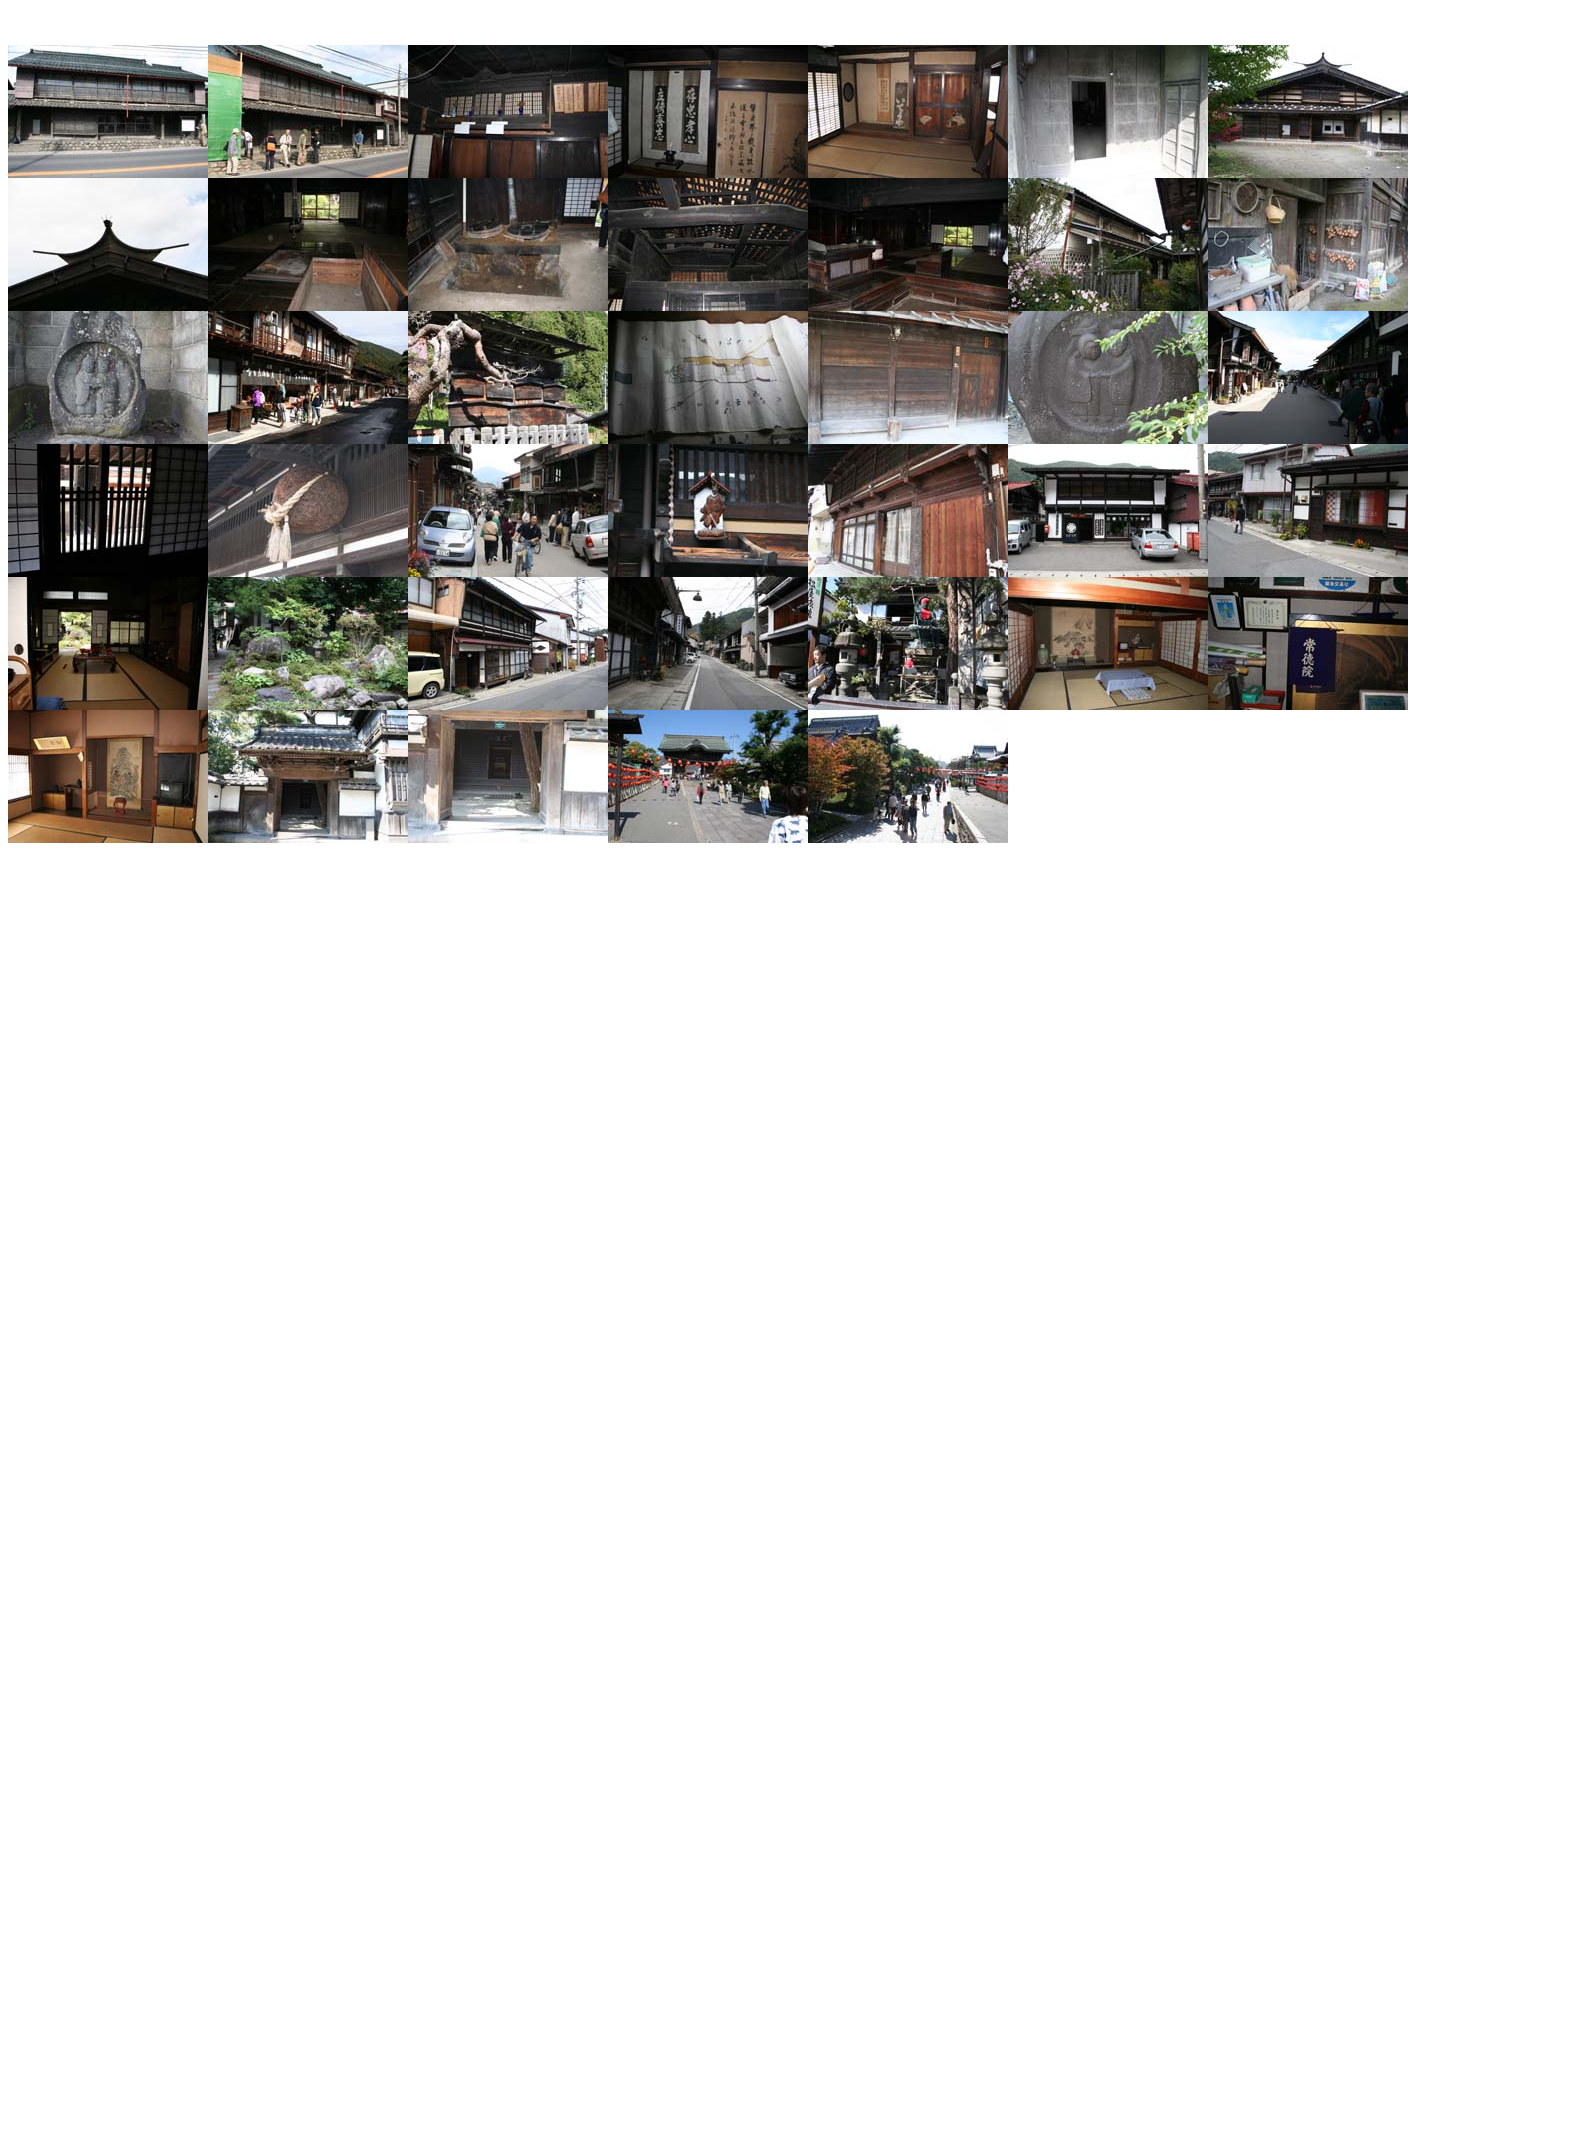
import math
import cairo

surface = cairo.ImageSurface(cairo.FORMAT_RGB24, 1590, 2146)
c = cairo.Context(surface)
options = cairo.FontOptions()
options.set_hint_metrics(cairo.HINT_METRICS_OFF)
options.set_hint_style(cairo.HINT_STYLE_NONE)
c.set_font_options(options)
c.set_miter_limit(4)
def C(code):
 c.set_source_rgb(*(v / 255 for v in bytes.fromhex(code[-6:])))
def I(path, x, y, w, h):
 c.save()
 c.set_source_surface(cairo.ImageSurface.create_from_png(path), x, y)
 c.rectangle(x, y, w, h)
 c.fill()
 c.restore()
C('ffffff')
c.paint()
I('1.png',8,45,200,133)
I('2.png',208,45,200,133)
I('3.png',408,45,200,133)
I('4.png',608,45,200,133)
I('5.png',808,45,200,133)
I('6.png',1008,45,200,133)
I('7.png',1208,45,200,133)
I('8.png',8,178,200,133)
I('9.png',208,178,200,133)
I('10.png',408,178,200,133)
I('11.png',608,178,200,133)
I('12.png',808,178,200,133)
I('13.png',1008,178,200,133)
I('14.png',1208,178,200,133)
I('15.png',8,311,200,133)
I('16.png',208,311,200,133)
I('17.png',408,311,200,133)
I('18.png',608,311,200,133)
I('19.png',808,311,200,133)
I('20.png',1008,311,200,133)
I('21.png',1208,311,200,133)
I('22.png',8,444,200,133)
I('23.png',208,444,200,133)
I('24.png',408,444,200,133)
I('25.png',608,444,200,133)
I('26.png',808,444,200,133)
I('27.png',1008,444,200,133)
I('28.png',1208,444,200,133)
I('29.png',8,577,200,133)
I('30.png',208,577,200,133)
I('31.png',408,577,200,133)
I('32.png',608,577,200,133)
I('33.png',808,577,200,133)
I('34.png',1008,577,200,133)
I('35.png',1208,577,200,133)
I('36.png',8,710,200,133)
I('37.png',208,710,200,133)
I('38.png',408,710,200,133)
I('39.png',608,710,200,133)
I('40.png',808,710,200,133)
surface.write_to_png('o.png')
